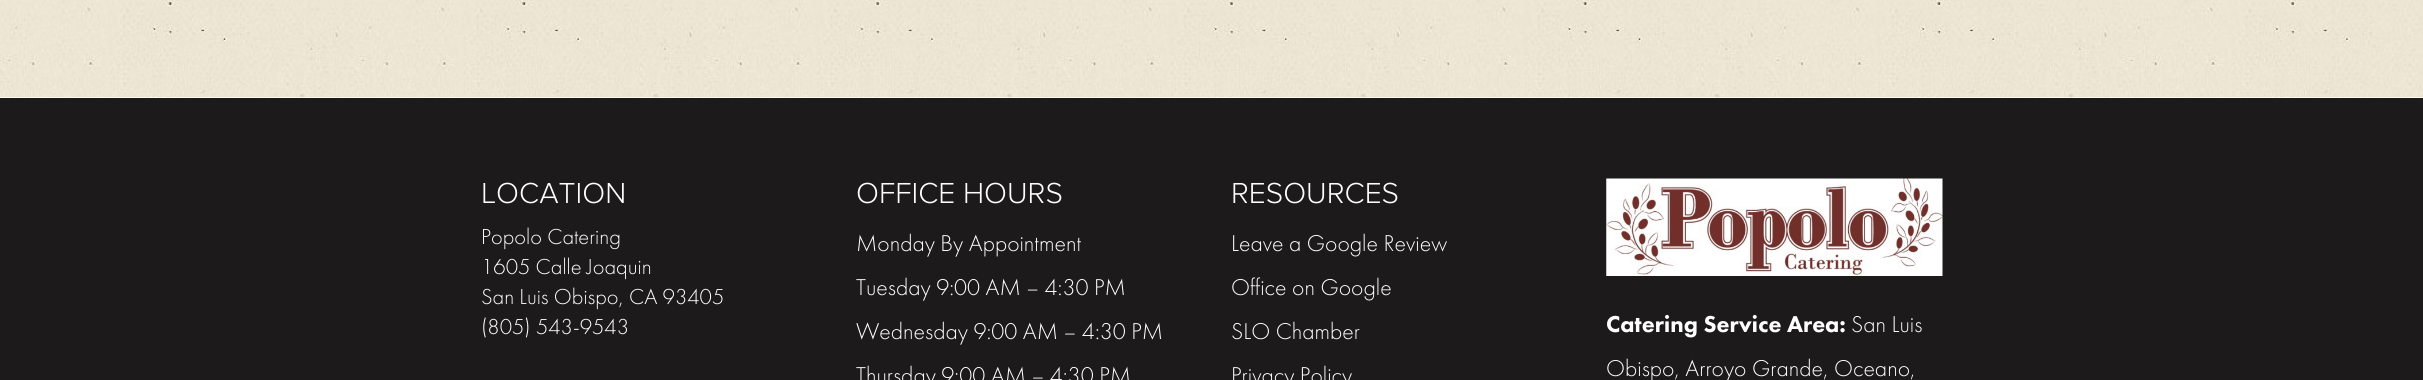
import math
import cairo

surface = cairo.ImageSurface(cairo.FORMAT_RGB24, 2423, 380)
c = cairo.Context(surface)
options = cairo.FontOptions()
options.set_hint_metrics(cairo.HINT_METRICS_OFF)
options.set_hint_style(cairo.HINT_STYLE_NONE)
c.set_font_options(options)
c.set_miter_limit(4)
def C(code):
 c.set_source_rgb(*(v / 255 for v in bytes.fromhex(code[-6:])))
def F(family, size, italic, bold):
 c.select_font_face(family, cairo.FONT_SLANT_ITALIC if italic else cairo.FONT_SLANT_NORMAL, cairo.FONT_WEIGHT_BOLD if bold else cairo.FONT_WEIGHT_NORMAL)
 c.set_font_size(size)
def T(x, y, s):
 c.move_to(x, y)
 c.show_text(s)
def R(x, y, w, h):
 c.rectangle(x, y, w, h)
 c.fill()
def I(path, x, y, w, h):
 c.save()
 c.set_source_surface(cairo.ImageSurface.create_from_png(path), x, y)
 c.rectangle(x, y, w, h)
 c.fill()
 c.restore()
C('ffffff')
c.paint()
I('1.png',0,0,2423,98)
C('1c1a1a')
R(0,98,2423,282)
F('Proxima Nova Light',30,0,0)
C('ffffff')
T(481,203,'LOCATION')
F('Futura PT Light',22.5,0,0)
T(481,244,'Popolo Catering')
T(481,274,'1605 Calle Joaquin')
T(481,304,'San Luis Obispo, CA 93405')
T(481,334,'(805) 543-9543')
F('Proxima Nova Light',30,0,0)
T(856,203,'OFFICE HOURS')
F('Futura PT Light',23.75,0,0)
T(856,251,'Monday By Appointment')
T(856,295,'Tuesday 9:00 AM – 4:30 PM')
T(856,339,'Wednesday 9:00 AM – 4:30 PM')
T(856,383,'Thursday 9:00 AM – 4:30 PM')
F('Proxima Nova Light',30,0,0)
T(1231,203,'RESOURCES')
F('Futura PT Light',23.75,0,0)
T(1231,251,'Leave a Google Review')
T(1231,295,'Office on Google')
T(1231,339,'SLO Chamber')
T(1231,383,'Privacy Policy')
I('2.png',1606,178,337,98)
F('Futura PT Black',23.75,0,0)
T(1606,332,'Catering Service Area:')
F('Futura PT Light',23.75,0,0)
T(1851,332,'San Luis')
T(1606,376,'Obispo, Arroyo Grande, Oceano,')
surface.write_to_png('o.png')
